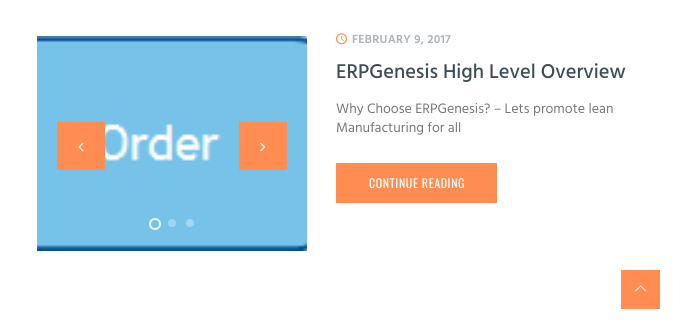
import math
import cairo

surface = cairo.ImageSurface(cairo.FORMAT_RGB24, 673, 322)
c = cairo.Context(surface)
options = cairo.FontOptions()
options.set_hint_metrics(cairo.HINT_METRICS_OFF)
options.set_hint_style(cairo.HINT_STYLE_NONE)
c.set_font_options(options)
c.set_miter_limit(4)
def C(code):
 c.set_source_rgb(*(v / 255 for v in bytes.fromhex(code[-6:])))
def F(family, size, italic, bold):
 c.select_font_face(family, cairo.FONT_SLANT_ITALIC if italic else cairo.FONT_SLANT_NORMAL, cairo.FONT_WEIGHT_BOLD if bold else cairo.FONT_WEIGHT_NORMAL)
 c.set_font_size(size)
def T(x, y, s):
 c.move_to(x, y)
 c.show_text(s)
def L(x, y, s, letter, word):
 c.move_to(x, y)
 for ch in s:
  c.show_text(ch)
  c.rel_move_to(letter + word * (ch == ' '), 0)
def R(x, y, w, h):
 c.rectangle(x, y, w, h)
 c.fill()
def I(path, x, y, w, h):
 c.save()
 c.set_source_surface(cairo.ImageSurface.create_from_png(path), x, y)
 c.rectangle(x, y, w, h)
 c.fill()
 c.restore()
C('ffffff')
c.paint()
I('1.png',37,36,270,215)
C('ff8d52')
R(57,122,48,48)
I('2.png',78,142,6,10)
R(239,122,48,48)
I('3.png',260,142,6,10)
c.arc(155,224,5,0,2 * math.pi)
C('e4f3fa')
c.stroke()
C('a3d6ef')
c.arc(172,223,4,0,2 * math.pi)
c.fill()
c.arc(190,223,4,0,2 * math.pi)
c.fill()
I('4.png',336,33,11,12)
F('Hind SemiBold',12,0,0)
C('acb2b7')
L(352,43,'FEBRUARY 9, 2017',.25,0)
F('Hind Medium',20.4,0,0)
C('3c4d56')
T(336,78,'ERPGenesis High Level Overview')
F('Hind',14,0,0)
C('787878')
T(336,113,'Why Choose ERPGenesis? – Lets promote lean')
T(336,132,'Manufacturing for all')
C('ff8d52')
R(336,163,161,40)
F('Oswald',12,0,0)
C('ffffff')
L(369,188,'CONTINUE READING',.6,0)
C('ff8d52')
R(621,270,39,39)
I('5.png',635,285,12,7)
surface.write_to_png('o.png')
